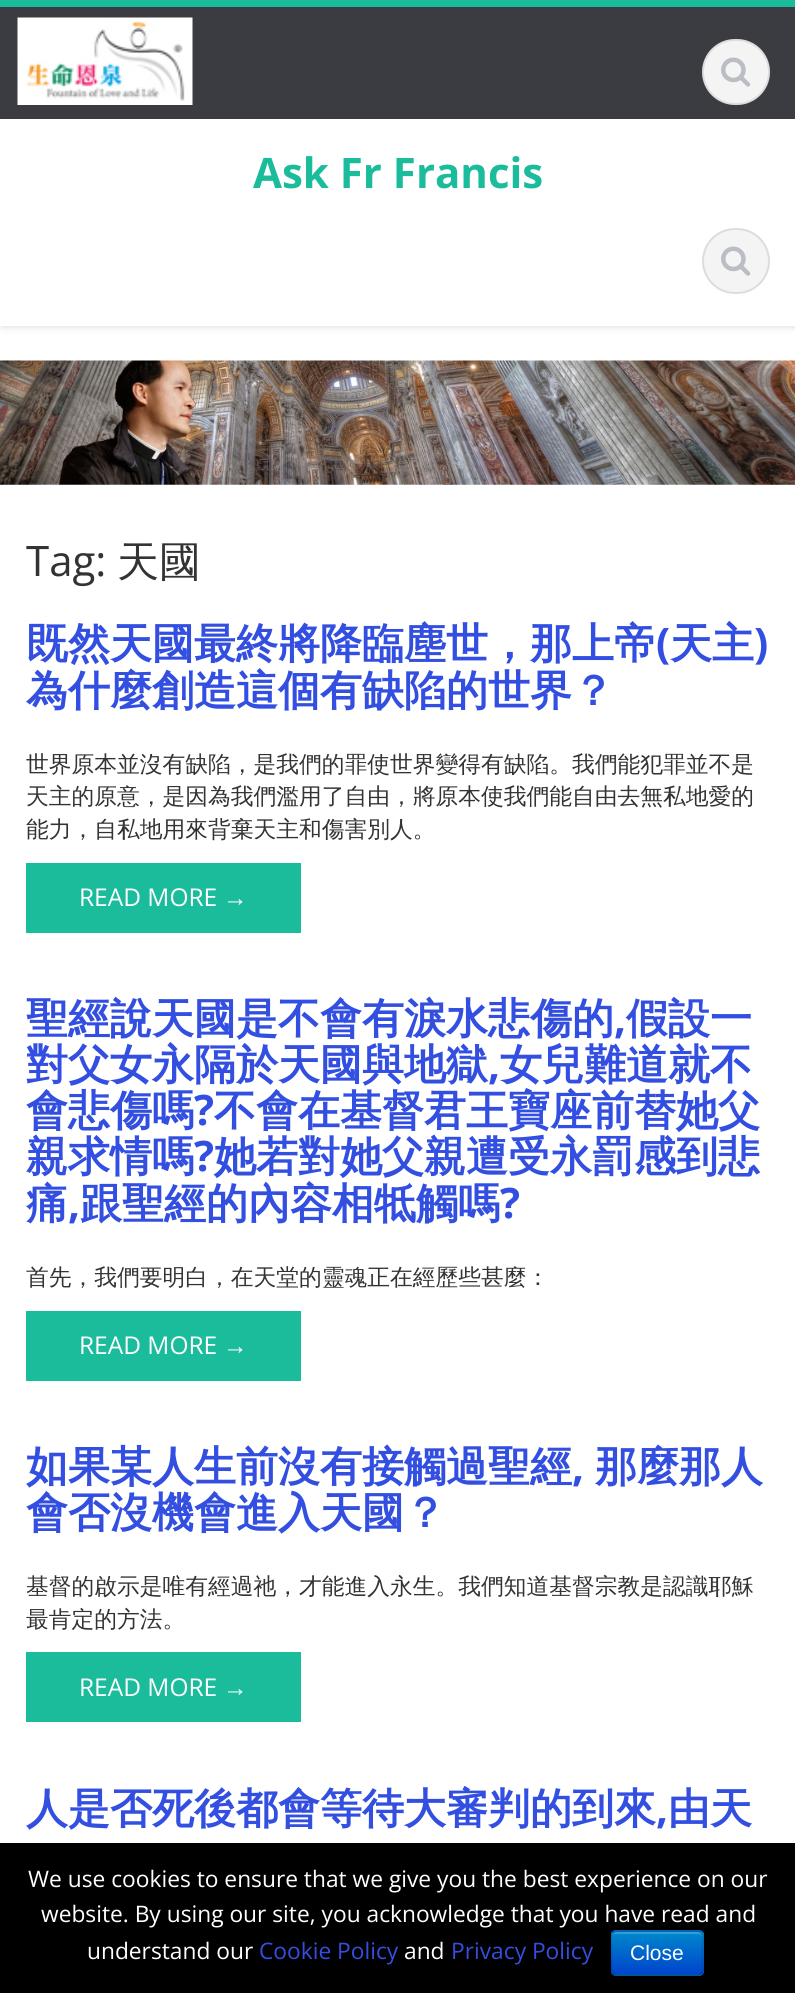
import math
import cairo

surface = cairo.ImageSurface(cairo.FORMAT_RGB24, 795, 1993)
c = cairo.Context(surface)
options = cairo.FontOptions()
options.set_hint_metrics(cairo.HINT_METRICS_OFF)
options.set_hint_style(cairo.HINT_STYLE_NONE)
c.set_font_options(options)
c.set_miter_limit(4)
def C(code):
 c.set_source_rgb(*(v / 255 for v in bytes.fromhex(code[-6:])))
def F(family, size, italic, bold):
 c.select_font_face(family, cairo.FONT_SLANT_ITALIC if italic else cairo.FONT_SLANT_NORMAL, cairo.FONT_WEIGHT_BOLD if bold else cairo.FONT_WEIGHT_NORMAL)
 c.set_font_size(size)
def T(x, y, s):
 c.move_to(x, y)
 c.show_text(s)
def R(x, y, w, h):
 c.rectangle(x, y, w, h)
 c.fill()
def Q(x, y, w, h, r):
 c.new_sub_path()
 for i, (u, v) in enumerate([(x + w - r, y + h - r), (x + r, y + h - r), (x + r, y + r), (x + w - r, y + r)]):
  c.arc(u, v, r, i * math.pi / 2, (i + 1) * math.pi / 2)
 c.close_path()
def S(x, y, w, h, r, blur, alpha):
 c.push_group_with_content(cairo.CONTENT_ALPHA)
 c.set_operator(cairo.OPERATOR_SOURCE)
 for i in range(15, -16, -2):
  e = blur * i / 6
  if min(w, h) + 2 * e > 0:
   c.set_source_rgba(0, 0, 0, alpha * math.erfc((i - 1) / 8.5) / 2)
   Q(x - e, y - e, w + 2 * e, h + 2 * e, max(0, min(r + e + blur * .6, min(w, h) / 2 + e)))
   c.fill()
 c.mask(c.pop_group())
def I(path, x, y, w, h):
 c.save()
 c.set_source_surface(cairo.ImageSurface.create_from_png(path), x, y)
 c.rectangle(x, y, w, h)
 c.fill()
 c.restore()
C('ffffff')
c.paint()
C('dddddd')
S(2,2,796,325,0,3.5,1)
C('3a3c41')
R(0,7,795,112)
C('1abc9c')
R(0,0,795,7)
C('f4f4f4')
Q(703,40,66,64,32)
c.fill_preserve()
C('dddddd')
c.stroke()
I('1.png',721,57,30,30)
I('2.png',17,17,176,88)
C('ffffff')
R(0,119,795,207)
F('Open Sans',42,0,1)
C('1abc9c')
T(253,188,'Ask Fr Francis')
C('f4f4f4')
Q(703,229,66,64,32)
c.fill_preserve()
C('dddddd')
c.stroke()
I('1.png',721,246,30,30)
I('3.png',0,360,795,125)
F('Open Sans',42,0,0)
C('333333')
T(26,576,'Tag:')
F('WenQuanYi Zen Hei Medium',42,0,0)
T(117,576,'天國')
F('WenQuanYi Zen Hei',42,0,1)
C('324fe1')
T(26,658,'既然天國最終將降臨塵世，那上帝')
F('Open Sans',42,0,1)
T(656,658,'(')
F('WenQuanYi Zen Hei',42,0,1)
T(670,658,'天主')
F('Open Sans',42,0,1)
T(754,658,')')
F('WenQuanYi Zen Hei',42,0,1)
T(26,705,'為什麼創造這個有缺陷的世界？')
F('WenQuanYi Zen Hei Medium',22.75,0,0)
C('333333')
T(26,772,'世界原本並沒有缺陷，是我們的罪使世界變得有缺陷。我們能犯罪並不是')
T(26,804,'天主的原意，是因為我們濫用了自由，將原本使我們能自由去無私地愛的')
T(26,837,'能力，自私地用來背棄天主和傷害別人。')
C('1abc9c')
R(26,863,275,70)
F('Open Sans',24.5,0,0)
C('ffffff')
T(79,906,'READ MORE')
F('Liberation Sans',24.5,0,0)
T(223,906,'→')
F('WenQuanYi Zen Hei',42,0,1)
C('324fe1')
T(26,1033,'聖經說天國是不會有淚水悲傷的')
F('Open Sans',42,0,1)
T(614,1033,',')
F('WenQuanYi Zen Hei',42,0,1)
T(626,1033,'假設一')
T(26,1079,'對父女永隔於天國與地獄')
F('Open Sans',42,0,1)
T(488,1079,',')
F('WenQuanYi Zen Hei',42,0,1)
T(500,1079,'女兒難道就不')
T(26,1125,'會悲傷嗎')
F('Open Sans',42,0,1)
T(194,1125,'?')
F('WenQuanYi Zen Hei',42,0,1)
T(214,1125,'不會在基督君王寶座前替她父')
T(26,1171,'親求情嗎')
F('Open Sans',42,0,1)
T(194,1171,'?')
F('WenQuanYi Zen Hei',42,0,1)
T(214,1171,'她若對她父親遭受永罰感到悲')
T(26,1218,'痛')
F('Open Sans',42,0,1)
T(68,1218,',')
F('WenQuanYi Zen Hei',42,0,1)
T(80,1218,'跟聖經的內容相牴觸嗎')
F('Open Sans',42,0,1)
T(500,1218,'?')
F('WenQuanYi Zen Hei Medium',22.75,0,0)
C('333333')
T(26,1285,'首先，我們要明白，在天堂的靈魂正在經歷些甚麼：')
C('1abc9c')
R(26,1311,275,70)
F('Open Sans',24.5,0,0)
C('ffffff')
T(79,1354,'READ MORE')
F('Liberation Sans',24.5,0,0)
T(223,1354,'→')
F('WenQuanYi Zen Hei',42,0,1)
C('324fe1')
T(26,1481,'如果某人生前沒有接觸過聖經')
F('Open Sans',42,0,1)
T(572,1481,',')
F('WenQuanYi Zen Hei',42,0,1)
T(595,1481,'那麼那人')
T(26,1527,'會否沒機會進入天國？')
F('WenQuanYi Zen Hei Medium',22.75,0,0)
C('333333')
T(26,1594,'基督的啟示是唯有經過祂，才能進入永生。我們知道基督宗教是認識耶穌')
T(26,1627,'最肯定的方法。')
C('1abc9c')
R(26,1652,275,70)
F('Open Sans',24.5,0,0)
C('ffffff')
T(79,1696,'READ MORE')
F('Liberation Sans',24.5,0,0)
T(223,1696,'→')
F('WenQuanYi Zen Hei',42,0,1)
C('324fe1')
T(26,1823,'人是否死後都會等待大審判的到來')
F('Open Sans',42,0,1)
T(656,1823,',')
F('WenQuanYi Zen Hei',42,0,1)
T(668,1823,'由天')
C('000000')
R(0,1843,795,150)
F('Open Sans',22.75,0,0)
C('ffffff')
T(28,1887,'We use cookies to ensure that we give you the best experience on our')
T(41,1922,'website. By using our site, you acknowledge that you have read and')
T(87,1959,'understand our')
C('324fe1')
T(259,1959,'Cookie Policy')
C('ffffff')
T(404,1959,'and')
C('324fe1')
T(451,1959,'Privacy Policy')
C('006dcc')
Q(611,1930,93,46,5)
c.fill()
c.save()
Q(611,1930,93,46,5)
c.clip()
gradient = cairo.LinearGradient(657,1932,657,1974)
gradient.add_color_stop_rgba(0,0,0.533,0.8,1)
gradient.add_color_stop_rgba(1,0,0.267,0.8,1)
c.set_source(gradient)
R(611,1932,93,42)
c.restore()
c.set_source_rgba(1,1,1,0.2)
c.new_path()
c.move_to(616,1934)
c.line_to(698,1934)
c.curve_to(700,1934,702,1935,702,1937)
c.line_to(702,1936)
c.curve_to(702,1934,700,1932,698,1932)
c.line_to(617,1932)
c.curve_to(615,1932,614,1933,613,1935)
c.close_path()
c.fill()
c.new_path()
c.move_to(701.5,1973.5)
c.line_to(698.5,1975)
c.line_to(615.5,1975)
c.line_to(613,1973.5)
c.set_source_rgba(0,0,0,0.25)
c.set_line_width(1.8)
c.stroke()
c.new_path()
c.move_to(613,1973.5)
c.curve_to(610.5,1971.5,611.5,1967,611.5,1964.5)
c.line_to(611.5,1953)
c.curve_to(611.5,1929.5,607,1931,629.5,1931)
c.line_to(684.5,1931)
c.curve_to(707,1931,702.5,1929.5,702.5,1953)
c.line_to(702.5,1964.5)
c.curve_to(702.5,1967,703.5,1971.5,701.5,1973.5)
c.set_source_rgba(0,0,0,0.1)
c.stroke()
F('Liberation Sans',21,0,0)
C('ffffff')
T(630,1960,'Close')
surface.write_to_png('o.png')
